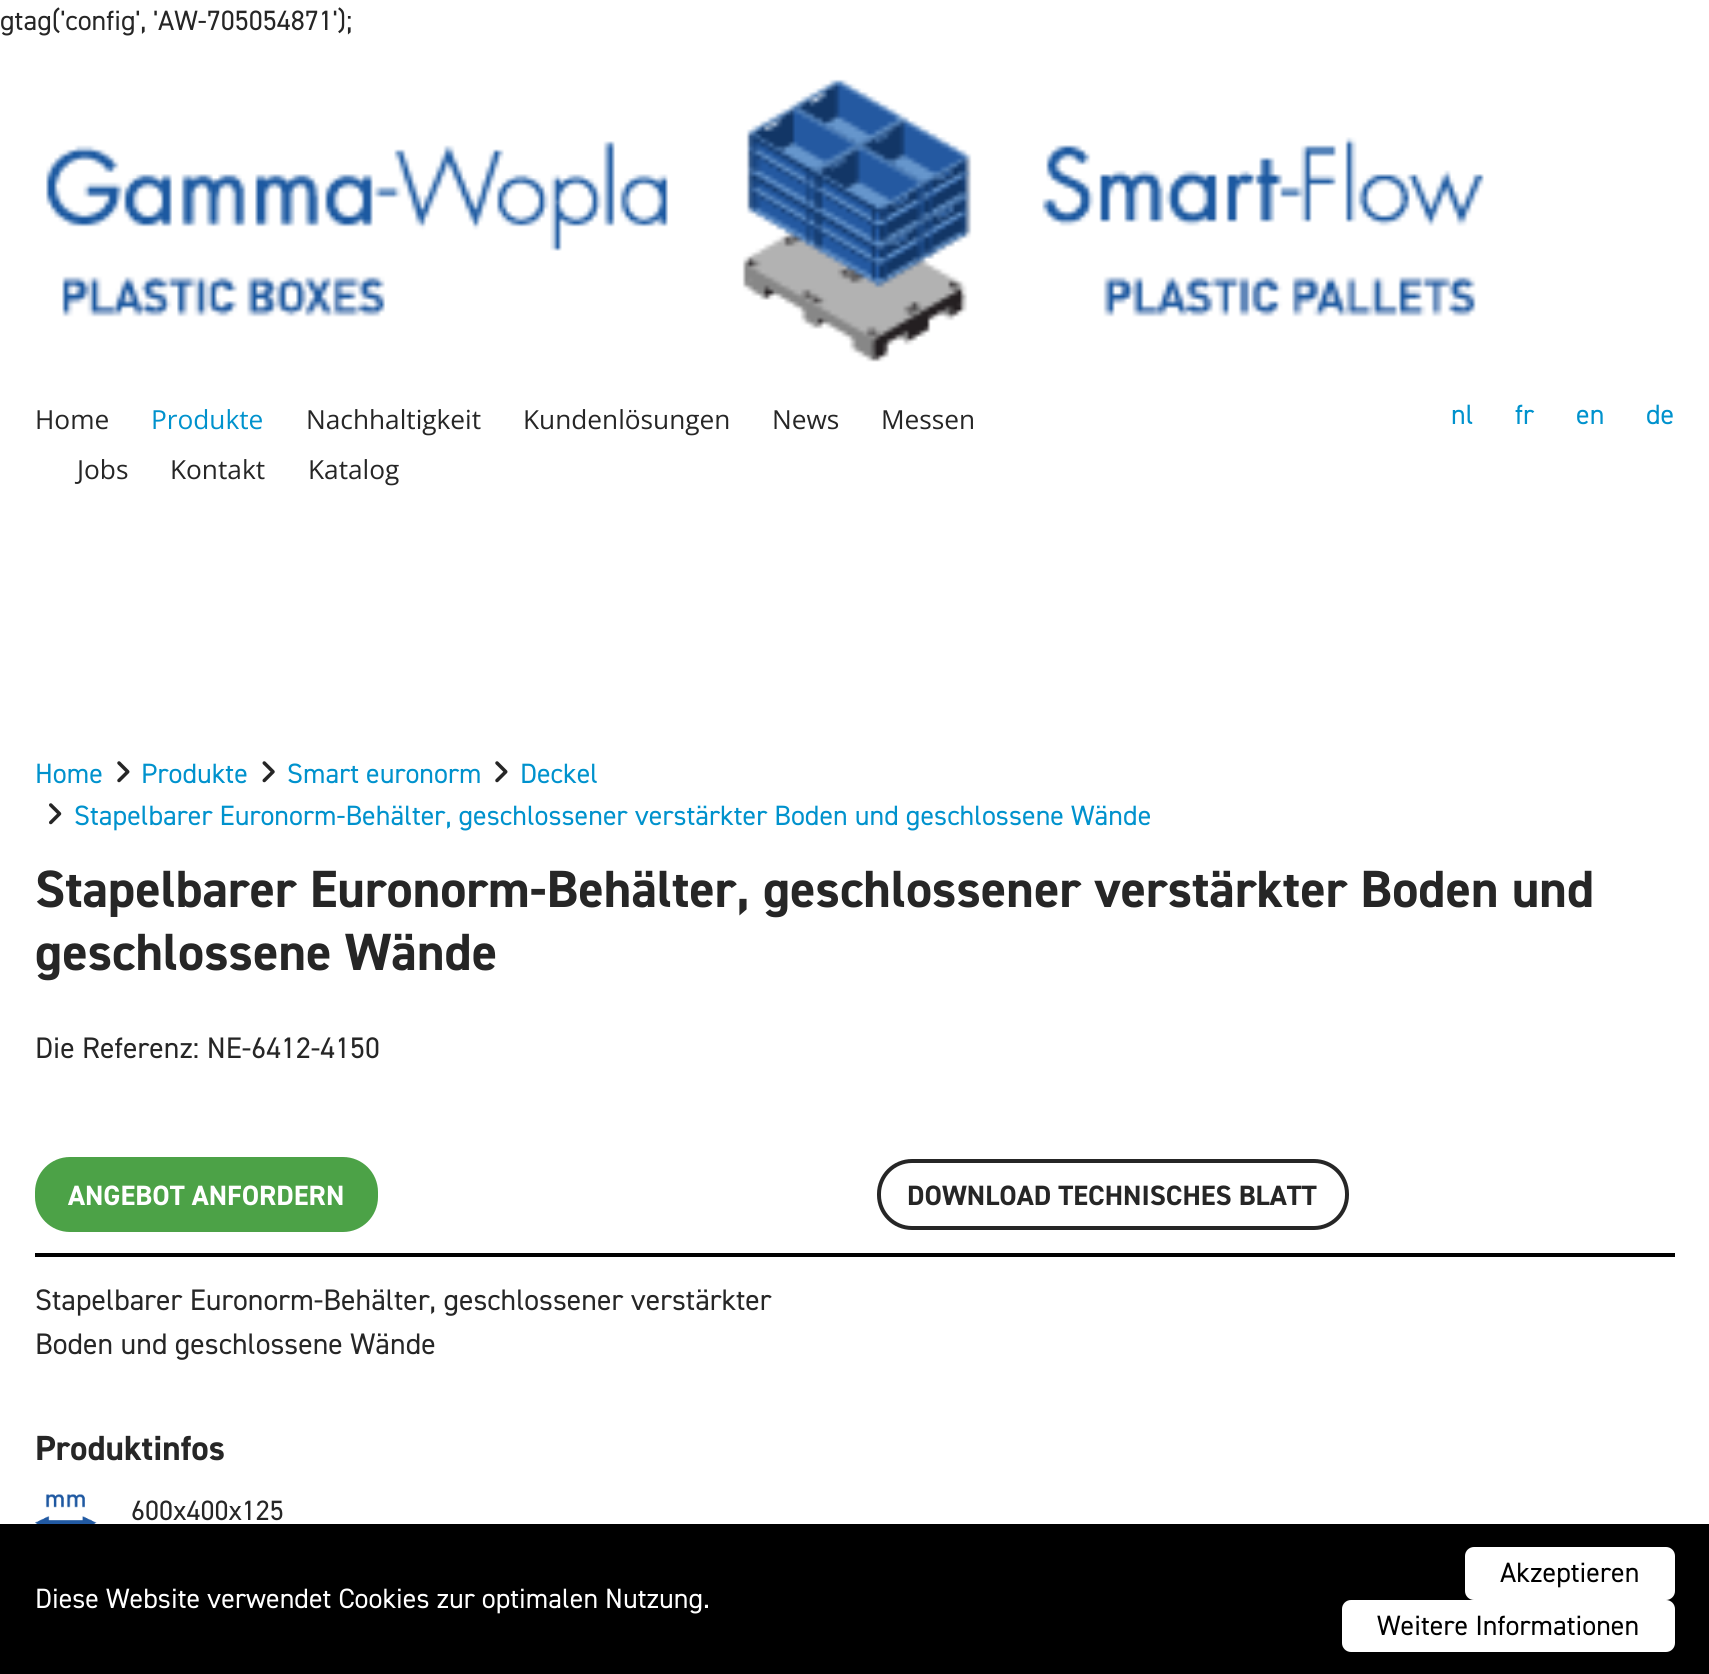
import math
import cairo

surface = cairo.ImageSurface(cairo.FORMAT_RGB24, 1709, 1674)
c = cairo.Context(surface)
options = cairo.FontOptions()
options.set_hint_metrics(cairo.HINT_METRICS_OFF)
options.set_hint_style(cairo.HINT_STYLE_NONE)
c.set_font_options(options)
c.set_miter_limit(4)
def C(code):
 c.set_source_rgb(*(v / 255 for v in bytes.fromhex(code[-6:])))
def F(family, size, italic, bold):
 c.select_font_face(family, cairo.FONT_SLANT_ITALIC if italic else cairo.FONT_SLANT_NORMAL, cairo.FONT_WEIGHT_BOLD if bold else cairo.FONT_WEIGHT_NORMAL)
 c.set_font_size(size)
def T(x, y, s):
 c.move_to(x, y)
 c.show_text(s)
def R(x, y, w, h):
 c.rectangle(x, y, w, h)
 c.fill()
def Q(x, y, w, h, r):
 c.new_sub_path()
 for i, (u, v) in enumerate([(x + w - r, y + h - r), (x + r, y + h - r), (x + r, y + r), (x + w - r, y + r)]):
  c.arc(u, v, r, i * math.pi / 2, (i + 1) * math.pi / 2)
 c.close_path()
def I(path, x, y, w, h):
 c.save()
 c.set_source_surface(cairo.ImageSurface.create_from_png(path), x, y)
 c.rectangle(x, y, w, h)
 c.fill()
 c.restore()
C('ffffff')
c.paint()
F('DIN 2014',28,0,0)
C('262626')
T(0,30,'gtag(\'config\', \'AW-705054871\');')
I('1.png',46,79,1438,283)
F('Open Sans',26.25,0,0)
T(35,429,'Home')
C('0092cd')
T(151,429,'Produkte')
C('262626')
T(306,429,'Nachhaltigkeit')
T(523,429,'Kundenlösungen')
T(772,429,'News')
T(881,429,'Messen')
T(77,479,'Jobs')
T(170,479,'Kontakt')
T(308,479,'Katalog')
F('DIN 2014',28,0,0)
C('0092cd')
T(1451,424,'nl')
T(1515,424,'fr')
T(1576,424,'en')
T(1646,424,'de')
T(35,783,'Home')
I('2.png',117,761,13,22)
T(141,783,'Produkte')
I('3.png',262,761,13,22)
T(287,783,'Smart euronorm')
I('2.png',495,761,13,22)
T(520,783,'Deckel')
I('4.png',49,803,13,22)
T(74,825,'Stapelbarer Euronorm-Behälter, geschlossener verstärkter Boden und geschlossene Wände')
F('DIN 2014',52.5,0,1)
C('262626')
T(35,907,'Stapelbarer Euronorm-Behälter, geschlossener verstärkter Boden und')
T(35,970,'geschlossene Wände')
F('DIN 2014',29.75,0,0)
T(35,1058,'Die Referenz: NE-6412-4150')
C('4ca247')
Q(37.5,1159.5,338,70,32.5)
c.fill_preserve()
c.set_line_width(5)
c.stroke()
F('DIN 2014',28,0,1)
C('ffffff')
T(68,1205,'ANGEBOT ANFORDERN')
Q(879,1161,468,67,33)
C('262626')
c.set_line_width(4)
c.stroke()
T(907,1205,'DOWNLOAD TECHNISCHES BLATT')
C('000000')
R(35,1253,1640,4)
F('DIN 2014',29.75,0,0)
C('262626')
T(35,1310,'Stapelbarer Euronorm-Behälter, geschlossener verstärkter')
T(35,1354,'Boden und geschlossene Wände')
F('DIN 2014',35,0,1)
T(35,1460,'Produktinfos')
I('5.png',35,1494,62,30)
F('DIN 2014',28,0,0)
T(131,1520,'600x400x125')
C('000000')
R(0,1524,1709,150)
C('ffffff')
T(35,1608,'Diese Website verwendet Cookies zur optimalen Nutzung.')
Q(1465,1547,210,53,9)
c.fill()
C('000000')
T(1500,1582,'Akzeptieren')
C('ffffff')
Q(1342,1600,333,52,9)
c.fill()
C('000000')
T(1377,1635,'Weitere Informationen')
surface.write_to_png('o.png')
